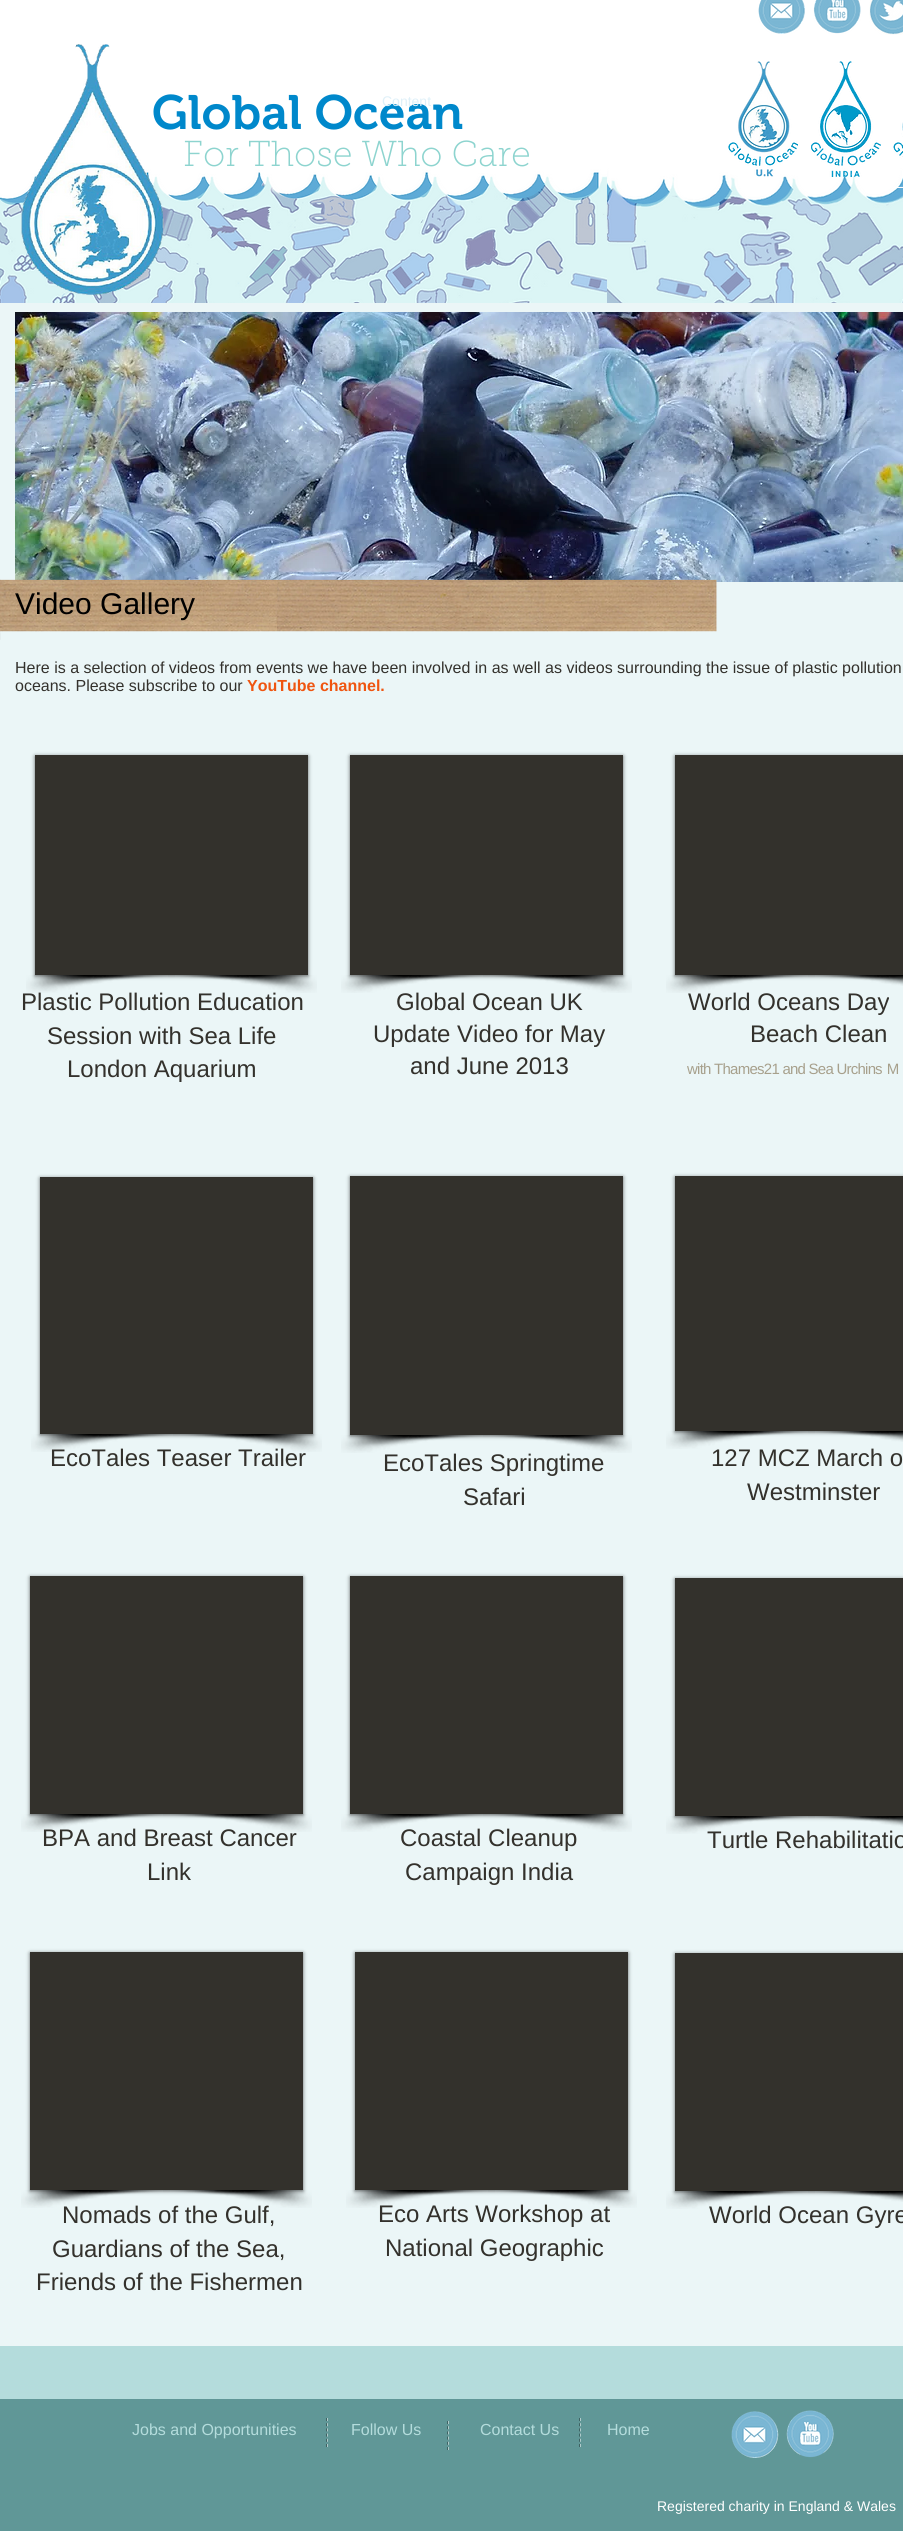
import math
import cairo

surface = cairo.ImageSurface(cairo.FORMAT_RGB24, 903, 2531)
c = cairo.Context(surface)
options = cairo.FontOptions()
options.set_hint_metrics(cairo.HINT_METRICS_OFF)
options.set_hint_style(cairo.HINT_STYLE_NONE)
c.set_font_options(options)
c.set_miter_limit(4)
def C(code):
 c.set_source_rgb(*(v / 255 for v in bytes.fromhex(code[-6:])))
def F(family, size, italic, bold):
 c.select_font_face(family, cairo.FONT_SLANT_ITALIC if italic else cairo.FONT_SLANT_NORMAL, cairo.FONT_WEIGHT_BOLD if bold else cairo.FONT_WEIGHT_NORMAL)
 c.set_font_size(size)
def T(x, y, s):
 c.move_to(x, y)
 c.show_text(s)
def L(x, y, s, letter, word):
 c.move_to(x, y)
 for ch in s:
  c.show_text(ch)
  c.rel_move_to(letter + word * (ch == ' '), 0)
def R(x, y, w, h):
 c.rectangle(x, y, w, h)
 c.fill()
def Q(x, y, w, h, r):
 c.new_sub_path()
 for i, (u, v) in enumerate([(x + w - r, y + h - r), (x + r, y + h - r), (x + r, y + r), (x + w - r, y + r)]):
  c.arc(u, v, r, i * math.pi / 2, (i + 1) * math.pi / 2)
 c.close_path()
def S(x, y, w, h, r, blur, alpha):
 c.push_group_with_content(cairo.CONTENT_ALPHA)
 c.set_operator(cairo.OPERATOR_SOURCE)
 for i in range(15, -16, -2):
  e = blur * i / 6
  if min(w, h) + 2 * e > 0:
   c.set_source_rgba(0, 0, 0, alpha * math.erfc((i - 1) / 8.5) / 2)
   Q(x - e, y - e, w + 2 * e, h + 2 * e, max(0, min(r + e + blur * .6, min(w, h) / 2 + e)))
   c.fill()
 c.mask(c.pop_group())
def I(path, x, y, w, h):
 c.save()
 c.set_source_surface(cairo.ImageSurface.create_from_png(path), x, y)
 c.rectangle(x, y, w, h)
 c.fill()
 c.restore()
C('b4dcdc')
c.paint()
I('1.png',0,0,607,303)
I('2.png',607,0,296,303)
I('3.png',758,0,47,34)
I('4.png',813,0,48,34)
I('5.png',869,0,34,35)
F('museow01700 SemiBold',48,0,0)
C('0088cb')
T(152,129,'Global Ocean')
I('6.png',728,61,70,116)
I('7.png',811,61,70,116)
F('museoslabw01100 Thin',36,0,0)
C('8dd4cf')
T(183,166,'For Those Who Care')
I('8.png',893,122,10,66)
C('ebf6f7')
R(0,303,903,2043)
I('9.png',21,44,143,251)
I('10.png',15,312,888,270)
I('11.png',0,579,717,61)
F('Liberation Sans',30,0,0)
C('000000')
T(15,614,'Video Gallery')
F('Liberation Sans',16,0,0)
C('33312c')
T(15,673,'Here is a selection of videos from events we have been involved in as well as videos surrounding the issue of plastic pollution')
T(15,691,'oceans. Please subscribe to our')
F('Liberation Sans',16,0,1)
C('ef5510')
T(247,691,'YouTube channel.')
C('000000')
S(35,756,273,220,0,2,.6)
C('33312c')
R(35,755,273,220)
I('12.png',26,975,149,18)
I('13.png',168,975,149,18)
C('000000')
S(350,756,273,220,0,2,.6)
C('33312c')
R(350,755,273,220)
I('12.png',341,975,149,18)
I('13.png',483,975,149,18)
C('000000')
S(675,756,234,220,0,2,.6)
C('33312c')
R(675,755,228,220)
I('12.png',666,975,149,18)
I('14.png',808,975,95,11)
F('Liberation Sans',24,0,0)
T(21,1010,'Plastic Pollution Education')
T(47,1044,'Session with Sea Life')
T(67,1077,'London Aquarium')
T(396,1010,'Global Ocean UK')
T(373,1042,'Update Video for May')
T(410,1074,'and June 2013')
T(688,1010,'World Oceans Day')
T(750,1042,'Beach Clean')
F('Liberation Sans',15,0,0)
C('a7a08c')
L(687,1074,'with Thames21 and Sea Urchin',-.75,0)
T(875,1074,'s M')
C('000000')
S(40,1178,273,257,0,2,.6)
C('33312c')
R(40,1177,273,257)
I('12.png',31,1434,149,18)
I('13.png',173,1434,149,18)
C('000000')
S(350,1177,273,259,0,2,.6)
C('33312c')
R(350,1176,273,259)
I('12.png',341,1435,149,18)
I('13.png',483,1435,149,18)
C('000000')
S(675,1177,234,255,0,2,.6)
C('33312c')
R(675,1176,228,255)
I('12.png',666,1431,149,18)
I('14.png',808,1431,95,11)
F('Liberation Sans',24,0,0)
T(50,1466,'EcoTales Teaser Trailer')
T(383,1471,'EcoTales Springtime')
T(463,1505,'Safari')
T(711,1466,'127 MCZ March o')
T(747,1500,'Westminster')
C('000000')
S(30,1577,273,238,0,2,.6)
C('33312c')
R(30,1576,273,238)
I('12.png',21,1814,149,18)
I('13.png',163,1814,149,18)
C('000000')
S(350,1577,273,238,0,2,.6)
C('33312c')
R(350,1576,273,238)
T(400,1846,'Coastal Cleanup')
I('15.png',341,1814,149,18)
I('16.png',483,1814,149,18)
C('000000')
S(675,1579,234,238,0,2,.6)
C('33312c')
R(675,1578,228,238)
T(707,1848,'Turtle Rehabilitatio')
I('17.png',666,1816,149,18)
I('14.png',808,1816,95,11)
T(42,1846,'BPA and Breast Cancer')
T(147,1880,'Link')
T(405,1880,'Campaign India')
C('000000')
S(30,1953,273,238,0,2,.6)
C('33312c')
R(30,1952,273,238)
T(62,2223,'Nomads of the Gulf,')
I('18.png',21,2190,149,18)
I('19.png',163,2190,149,18)
C('000000')
S(355,1953,273,238,0,2,.6)
C('33312c')
R(355,1952,273,238)
T(378,2222,'Eco Arts Workshop at')
I('20.png',346,2190,149,18)
I('21.png',488,2190,149,18)
C('000000')
S(675,1954,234,238,0,2,.6)
C('33312c')
R(675,1953,228,238)
T(709,2223,'World Ocean Gyre')
I('22.png',666,2191,149,18)
I('14.png',808,2191,95,11)
T(52,2257,'Guardians of the Sea,')
T(36,2290,'Friends of the Fishermen')
T(385,2256,'National Geographic')
C('609797')
R(0,2399,903,132)
F('Liberation Sans',16,0,0)
C('b4dcdc')
T(132,2435,'Jobs and Opportunities')
c.new_path()
c.move_to(327.5,2418)
c.line_to(327.5,2447)
C('b0cbcb')
c.set_line_width(1)
c.set_dash([3,2.2])
c.stroke()
c.new_path()
c.move_to(326.5,2418)
c.line_to(326.5,2447)
C('3e6262')
c.stroke()
C('b4dcdc')
T(351,2435,'Follow Us')
c.new_path()
c.move_to(448.5,2421)
c.line_to(448.5,2450)
C('b0cbcb')
c.stroke()
c.new_path()
c.move_to(447.5,2421)
c.line_to(447.5,2450)
C('3e6262')
c.stroke()
C('b4dcdc')
T(480,2435,'Contact Us')
c.new_path()
c.move_to(580.5,2418)
c.line_to(580.5,2447)
C('b0cbcb')
c.stroke()
c.new_path()
c.move_to(579.5,2418)
c.line_to(579.5,2447)
C('3e6262')
c.stroke()
C('b4dcdc')
T(607,2435,'Home')
I('23.png',731,2411,48,47)
I('24.png',786,2410,48,48)
F('Liberation Sans',14,0,0)
C('ffffff')
T(657,2511,'Registered charity in England & Wales')
C('dff0f8')
T(382,106,'Content')
surface.write_to_png('o.png')
